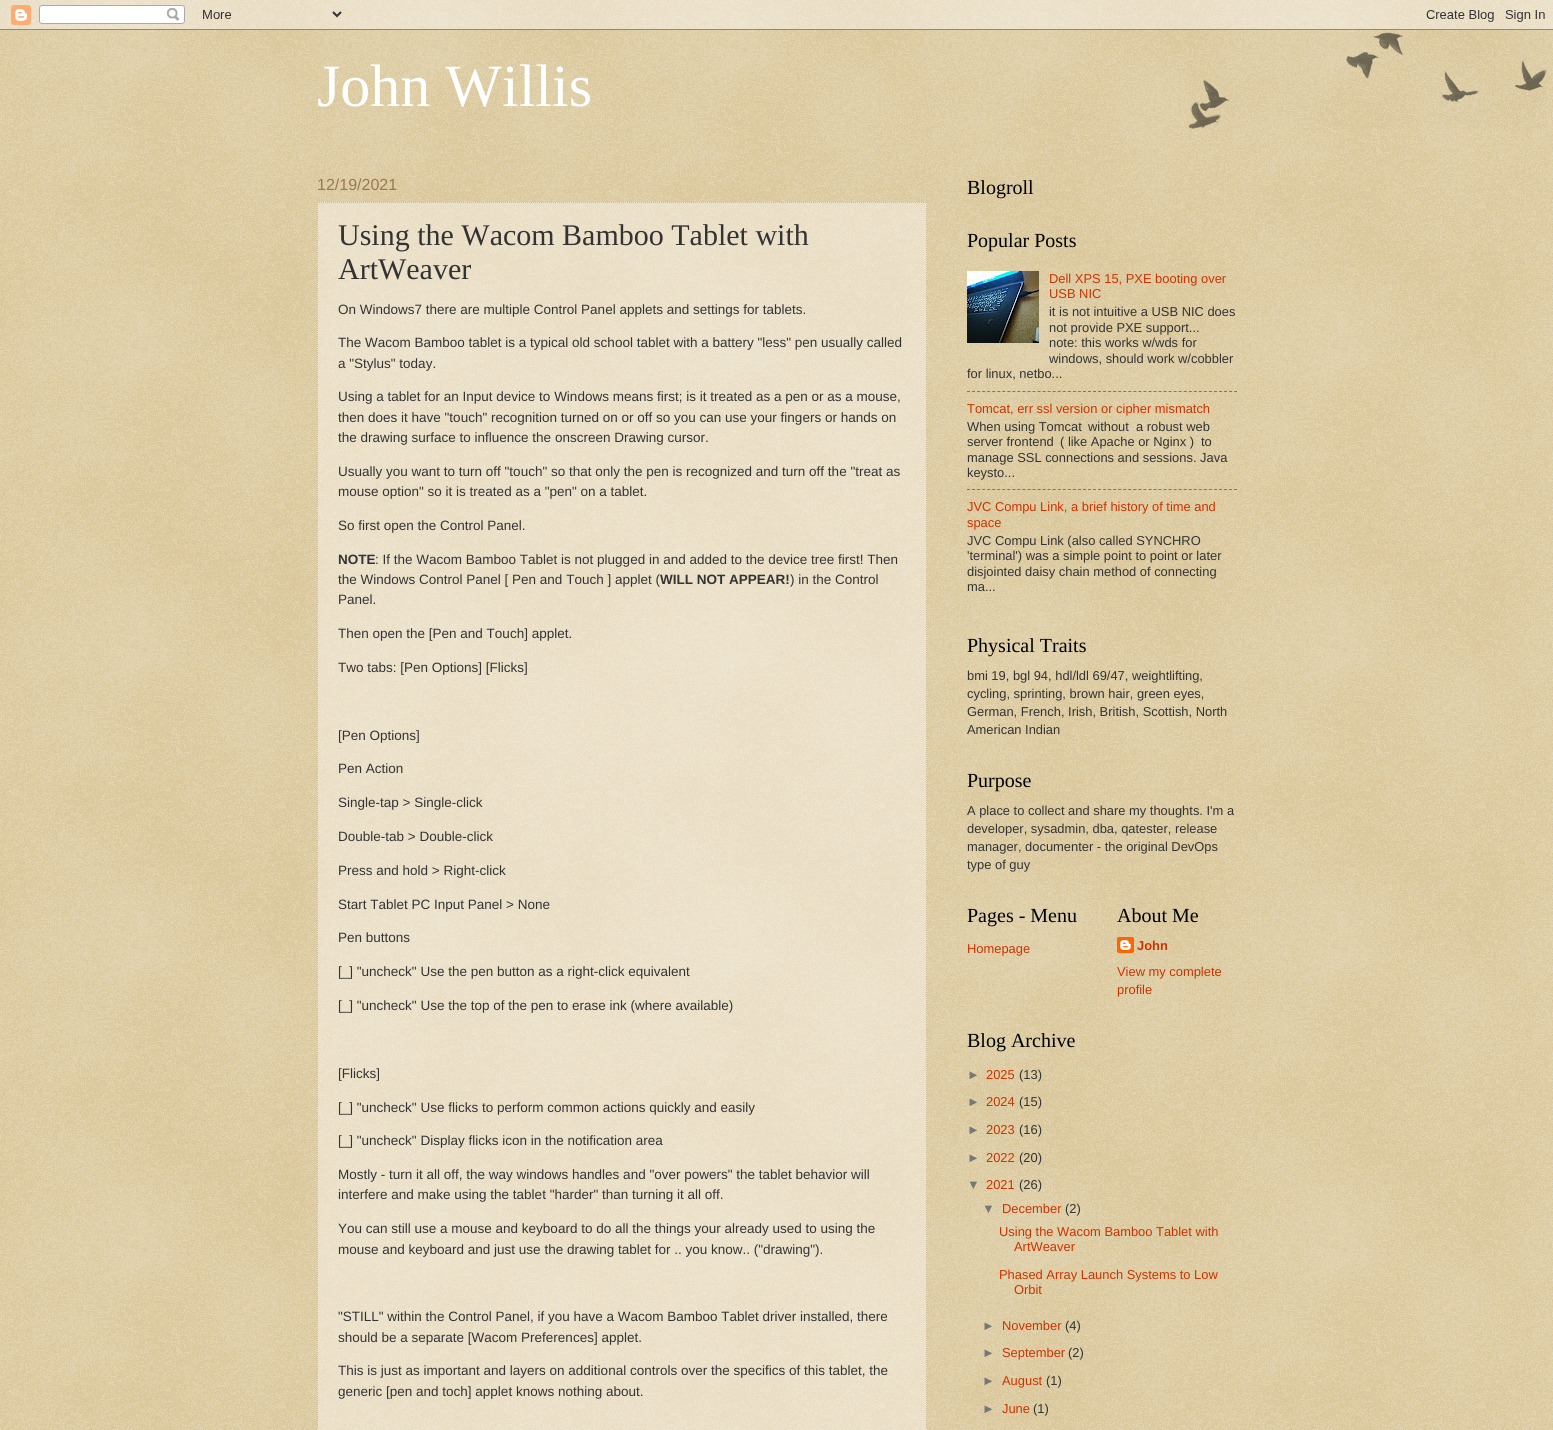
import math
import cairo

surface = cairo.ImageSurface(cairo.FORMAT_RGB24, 1553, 1430)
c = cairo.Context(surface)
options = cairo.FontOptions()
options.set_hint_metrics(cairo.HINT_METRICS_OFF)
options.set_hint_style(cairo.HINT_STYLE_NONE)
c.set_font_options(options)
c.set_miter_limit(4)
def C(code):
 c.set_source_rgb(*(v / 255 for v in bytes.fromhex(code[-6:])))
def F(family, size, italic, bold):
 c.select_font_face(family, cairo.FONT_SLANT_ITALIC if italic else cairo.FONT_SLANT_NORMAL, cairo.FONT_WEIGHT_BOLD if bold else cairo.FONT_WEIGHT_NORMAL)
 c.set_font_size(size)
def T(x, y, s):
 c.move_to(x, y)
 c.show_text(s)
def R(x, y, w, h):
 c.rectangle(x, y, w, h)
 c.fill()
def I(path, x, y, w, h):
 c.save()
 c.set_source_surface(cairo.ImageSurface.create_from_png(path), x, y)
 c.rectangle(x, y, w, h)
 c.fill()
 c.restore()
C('c0a154')
c.paint()
I('1.png',0,0,1553,1430)
I('2.png',0,0,1553,30)
F('Liberation Serif',60,0,0)
C('ffffff')
T(317,106,'John Willis')
F('Liberation Sans',16,0,0)
C('997755')
T(317,190,'12/19/2021')
c.set_source_rgba(1,1,1,0.4)
R(317,202,610,1228)
c.new_path()
c.move_to(317,202.5)
c.line_to(927,202.5)
C('ccbb99')
c.set_line_width(1)
c.set_dash([1,1])
c.stroke()
c.new_path()
c.move_to(926.5,202)
c.line_to(926.5,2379)
c.stroke()
c.new_path()
c.move_to(317.5,202)
c.line_to(317.5,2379)
c.stroke()
F('Liberation Serif',30,0,0)
C('333333')
T(338,245,'Using the Wacom Bamboo Tablet with')
T(338,279,'ArtWeaver')
F('Liberation Sans',13.5,0,0)
T(338,314,'On Windows7 there are multiple Control Panel applets and settings for tablets.')
T(338,347,'The Wacom Bamboo tablet is a typical old school tablet with a battery "less" pen usually called')
T(338,368,'a "Stylus" today.')
T(338,401,'Using a tablet for an Input device to Windows means first; is it treated as a pen or as a mouse,')
T(338,422,'then does it have "touch" recognition turned on or off so you can use your fingers or hands on')
T(338,442,'the drawing surface to influence the onscreen Drawing cursor.')
T(338,476,'Usually you want to turn off "touch" so that only the pen is recognized and turn off the "treat as')
T(338,496,'mouse option" so it is treated as a "pen" on a tablet.')
T(338,530,'So first open the Control Panel.')
F('Liberation Sans',13.5,0,1)
T(338,564,'NOTE')
F('Liberation Sans',13.5,0,0)
T(375,564,': If the Wacom Bamboo Tablet is not plugged in and added to the device tree first! Then')
T(338,584,'the Windows Control Panel [ Pen and Touch ] applet (')
F('Liberation Sans',13.5,0,1)
T(660,584,'WILL NOT APPEAR!')
F('Liberation Sans',13.5,0,0)
T(790,584,') in the Control')
T(338,604,'Panel.')
T(338,638,'Then open the [Pen and Touch] applet.')
T(338,672,'Two tabs: [Pen Options] [Flicks]')
T(338,740,'[Pen Options]')
T(338,773,'Pen Action')
T(338,807,'Single-tap > Single-click')
T(338,841,'Double-tab > Double-click')
T(338,875,'Press and hold > Right-click')
T(338,909,'Start Tablet PC Input Panel > None')
T(338,942,'Pen buttons')
T(338,976,'[_] "uncheck" Use the pen button as a right-click equivalent')
T(338,1010,'[_] "uncheck" Use the top of the pen to erase ink (where available)')
T(338,1078,'[Flicks]')
T(338,1112,'[_] "uncheck" Use flicks to perform common actions quickly and easily')
T(338,1145,'[_] "uncheck" Display flicks icon in the notification area')
T(338,1179,'Mostly - turn it all off, the way windows handles and "over powers" the tablet behavior will')
T(338,1199,'interfere and make using the tablet "harder" than turning it all off.')
T(338,1233,'You can still use a mouse and keyboard to do all the things your already used to using the')
T(338,1254,'mouse and keyboard and just use the drawing tablet for .. you know.. ("drawing").')
T(338,1321,'"STILL" within the Control Panel, if you have a Wacom Bamboo Tablet driver installed, there')
T(338,1342,'should be a separate [Wacom Preferences] applet.')
T(338,1375,'This is just as important and layers on additional controls over the specifics of this tablet, the')
T(338,1396,'generic [pen and toch] applet knows nothing about.')
F('Liberation Serif',20,0,0)
C('000000')
T(967,194,'Blogroll')
T(967,247,'Popular Posts')
I('3.png',967,271,72,72)
F('Liberation Sans',12.9,0,0)
C('cc3300')
T(1049,283,'Dell XPS 15, PXE booting over')
T(1049,298,'USB NIC')
C('333333')
T(1049,316,'it is not intuitive a USB NIC does')
T(1049,332,'not provide PXE support...')
T(1049,347,'note: this works w/wds for')
T(1049,363,'windows, should work w/cobbler')
T(967,378,'for linux, netbo...')
c.new_path()
c.move_to(967,391.5)
c.line_to(1237,391.5)
C('777777')
c.set_dash([3,2.04])
c.stroke()
C('cc3300')
T(967,413,'Tomcat, err ssl version or cipher mismatch')
C('333333')
T(967,431,'When using Tomcat')
T(1088,431,'without')
T(1136,431,'a robust web')
T(967,446,'server frontend')
T(1060,446,'( like Apache or Nginx )')
T(1201,446,'to')
T(967,462,'manage SSL connections and sessions. Java')
T(967,477,'keysto...')
c.new_path()
c.move_to(967,489.5)
c.line_to(1237,489.5)
C('777777')
c.stroke()
C('cc3300')
T(967,511,'JVC Compu Link, a brief history of time and')
T(967,527,'space')
C('333333')
T(967,545,'JVC Compu Link (also called SYNCHRO')
T(967,560,'\'terminal\') was a simple point to point or later')
T(967,576,'disjointed daisy chain method of connecting')
T(967,591,'ma...')
F('Liberation Serif',20,0,0)
C('000000')
T(967,652,'Physical Traits')
F('Liberation Sans',12.9,0,0)
C('333333')
T(967,680,'bmi 19, bgl 94, hdl/ldl 69/47, weightlifting,')
T(967,698,'cycling, sprinting, brown hair, green eyes,')
T(967,716,'German, French, Irish, British, Scottish, North')
T(967,734,'American Indian')
F('Liberation Serif',20,0,0)
C('000000')
T(967,787,'Purpose')
F('Liberation Sans',12.9,0,0)
C('333333')
T(967,815,'A place to collect and share my thoughts. I\'m a')
T(967,833,'developer, sysadmin, dba, qatester, release')
T(967,851,'manager, documenter - the original DevOps')
T(967,869,'type of guy')
F('Liberation Serif',20,0,0)
C('000000')
T(967,922,'Pages - Menu')
F('Liberation Sans',12.9,0,0)
C('cc3300')
T(967,953,'Homepage')
F('Liberation Serif',20,0,0)
C('000000')
T(1117,922,'About Me')
I('4.png',1117,937,17,16)
F('Liberation Sans',12.9,0,1)
C('cc3300')
T(1137,950,'John')
F('Liberation Sans',12.9,0,0)
T(1117,976,'View my complete')
T(1117,994,'profile')
F('Liberation Serif',20,0,0)
C('000000')
T(967,1047,'Blog Archive')
F('Liberation Sans',12.9,0,0)
C('777777')
T(967,1079,'►')
C('cc3300')
T(986,1079,'2025')
C('333333')
T(1019,1079,'(13)')
C('777777')
T(967,1106,'►')
C('cc3300')
T(986,1106,'2024')
C('333333')
T(1019,1106,'(15)')
C('777777')
T(967,1134,'►')
C('cc3300')
T(986,1134,'2023')
C('333333')
T(1019,1134,'(16)')
C('777777')
T(967,1162,'►')
C('cc3300')
T(986,1162,'2022')
C('333333')
T(1019,1162,'(20)')
C('777777')
T(967,1189,'▼')
C('cc3300')
T(986,1189,'2021')
C('333333')
T(1019,1189,'(26)')
C('777777')
T(982,1213,'▼')
C('cc3300')
T(1002,1213,'December')
C('333333')
T(1065,1213,'(2)')
C('cc3300')
T(999,1236,'Using the Wacom Bamboo Tablet with')
T(1014,1251,'ArtWeaver')
T(999,1279,'Phased Array Launch Systems to Low')
T(1014,1294,'Orbit')
C('777777')
T(982,1330,'►')
C('cc3300')
T(1002,1330,'November')
C('333333')
T(1065,1330,'(4)')
C('777777')
T(982,1357,'►')
C('cc3300')
T(1002,1357,'September')
C('333333')
T(1068,1357,'(2)')
C('777777')
T(982,1385,'►')
C('cc3300')
T(1002,1385,'August')
C('333333')
T(1046,1385,'(1)')
C('777777')
T(982,1413,'►')
C('cc3300')
T(1002,1413,'June')
C('333333')
T(1033,1413,'(1)')
I('5.png',1188,32,359,97)
surface.write_to_png('o.png')
